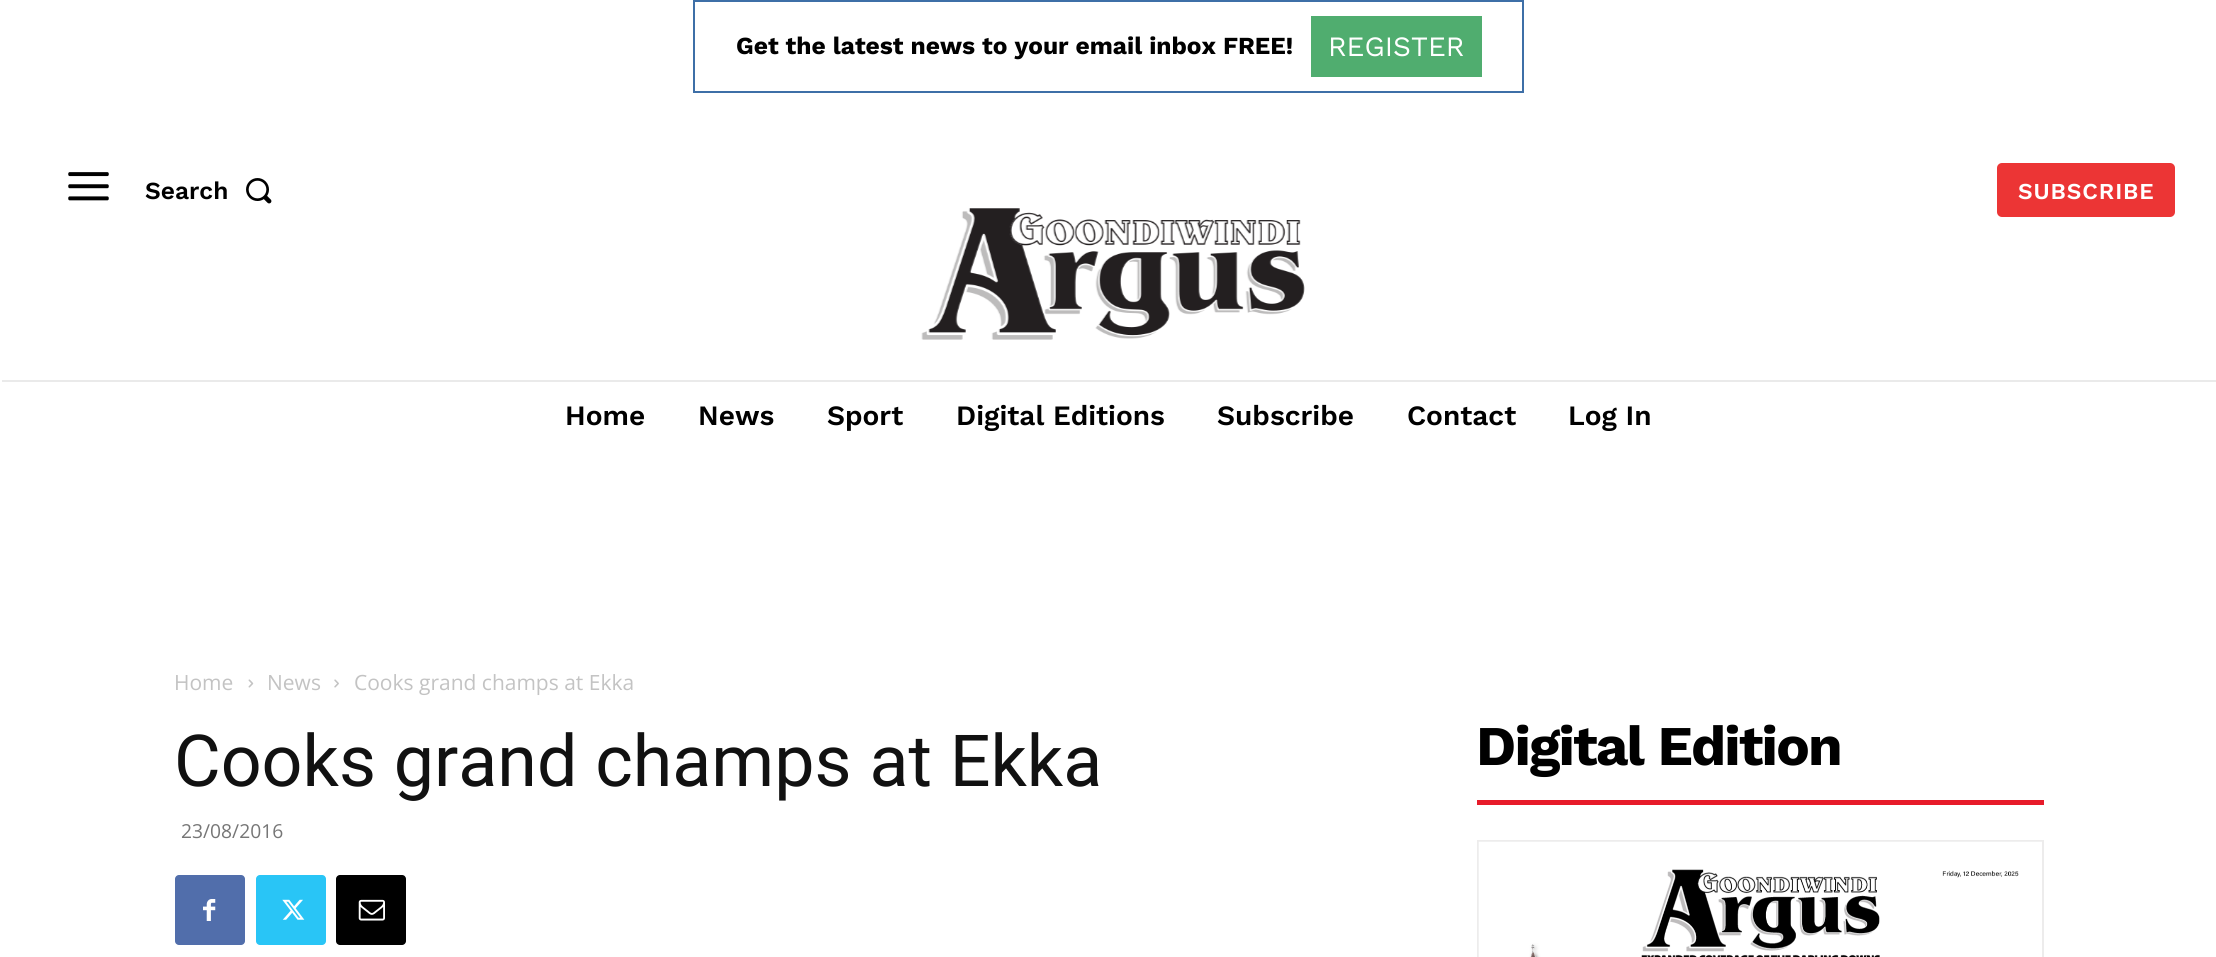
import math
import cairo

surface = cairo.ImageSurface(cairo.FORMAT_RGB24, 2216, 957)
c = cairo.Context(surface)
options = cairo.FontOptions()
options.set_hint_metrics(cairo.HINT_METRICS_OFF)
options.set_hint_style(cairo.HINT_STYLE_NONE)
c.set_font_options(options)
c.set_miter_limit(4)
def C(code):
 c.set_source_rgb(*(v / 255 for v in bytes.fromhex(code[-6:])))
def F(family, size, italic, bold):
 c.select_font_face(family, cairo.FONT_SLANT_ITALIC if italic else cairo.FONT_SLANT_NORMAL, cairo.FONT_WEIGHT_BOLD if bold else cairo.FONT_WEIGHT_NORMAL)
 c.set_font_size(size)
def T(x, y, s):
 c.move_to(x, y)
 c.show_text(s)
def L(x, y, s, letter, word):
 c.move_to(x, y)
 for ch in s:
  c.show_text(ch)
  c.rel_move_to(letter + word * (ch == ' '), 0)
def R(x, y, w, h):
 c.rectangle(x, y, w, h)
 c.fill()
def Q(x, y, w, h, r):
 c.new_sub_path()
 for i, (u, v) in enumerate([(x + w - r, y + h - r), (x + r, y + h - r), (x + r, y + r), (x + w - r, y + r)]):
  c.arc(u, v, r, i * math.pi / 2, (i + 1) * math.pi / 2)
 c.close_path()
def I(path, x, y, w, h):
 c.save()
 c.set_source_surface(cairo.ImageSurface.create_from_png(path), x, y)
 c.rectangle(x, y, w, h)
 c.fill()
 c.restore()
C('ffffff')
c.paint()
c.rectangle(694,1,829,91)
C('3e6fa7')
c.stroke()
F('Work Sans',24.5,0,1)
C('000000')
T(736,54,'Get the latest news to your email inbox FREE!')
C('50ad6f')
R(1311,16,171,61)
F('Work Sans',28,0,0)
C('ffffff')
T(1328,56,'REGISTER')
I('1.png',921,208,384,132)
I('2.png',68,172,41,29)
F('Work Sans SemiBold',24.5,0,0)
C('000000')
T(145,199,'Search')
I('3.png',246,178,26,26)
C('ec3535')
Q(1997,163,178,54,5)
c.fill()
F('Work Sans SemiBold',22.75,0,0)
C('ffffff')
L(2018,199,'SUBSCRIBE',.9,0)
C('eaeaea')
R(2,380,2214,2)
F('Work Sans SemiBold',28,0,0)
C('000000')
T(565,425,'Home')
T(698,425,'News')
T(827,425,'Sport')
T(956,425,'Digital Editions')
T(1217,425,'Subscribe')
T(1407,425,'Contact')
T(1568,425,'Log In')
F('Open Sans',21,0,0)
C('c3c3c3')
T(174,690,'Home')
I('4.png',248,679,6,9)
T(267,690,'News')
I('5.png',334,679,5,9)
T(354,690,'Cooks grand champs at Ekka')
F('Roboto',71.75,0,0)
C('111111')
T(174,786,'Cooks grand champs at Ekka')
F('Open Sans',19.25,0,0)
C('767676')
T(181,838,'23/08/2016')
C('516eab')
Q(175,875,70,70,4)
c.fill()
I('6.png',203,899,13,22)
C('29c5f6')
Q(256,875,70,70,4)
c.fill()
I('7.png',282,899,23,21)
C('000000')
Q(336,875,70,70,4)
c.fill()
I('8.png',358,899,27,22)
C('e71b2a')
R(1477,800,567,5)
F('Work Sans',56,0,1)
C('000000')
L(1476,765,'Digital Edition',-1.75,0)
c.rectangle(1478,841,565,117)
C('edecec')
c.stroke()
I('9.png',1478,841,564,116)
surface.write_to_png('o.png')
